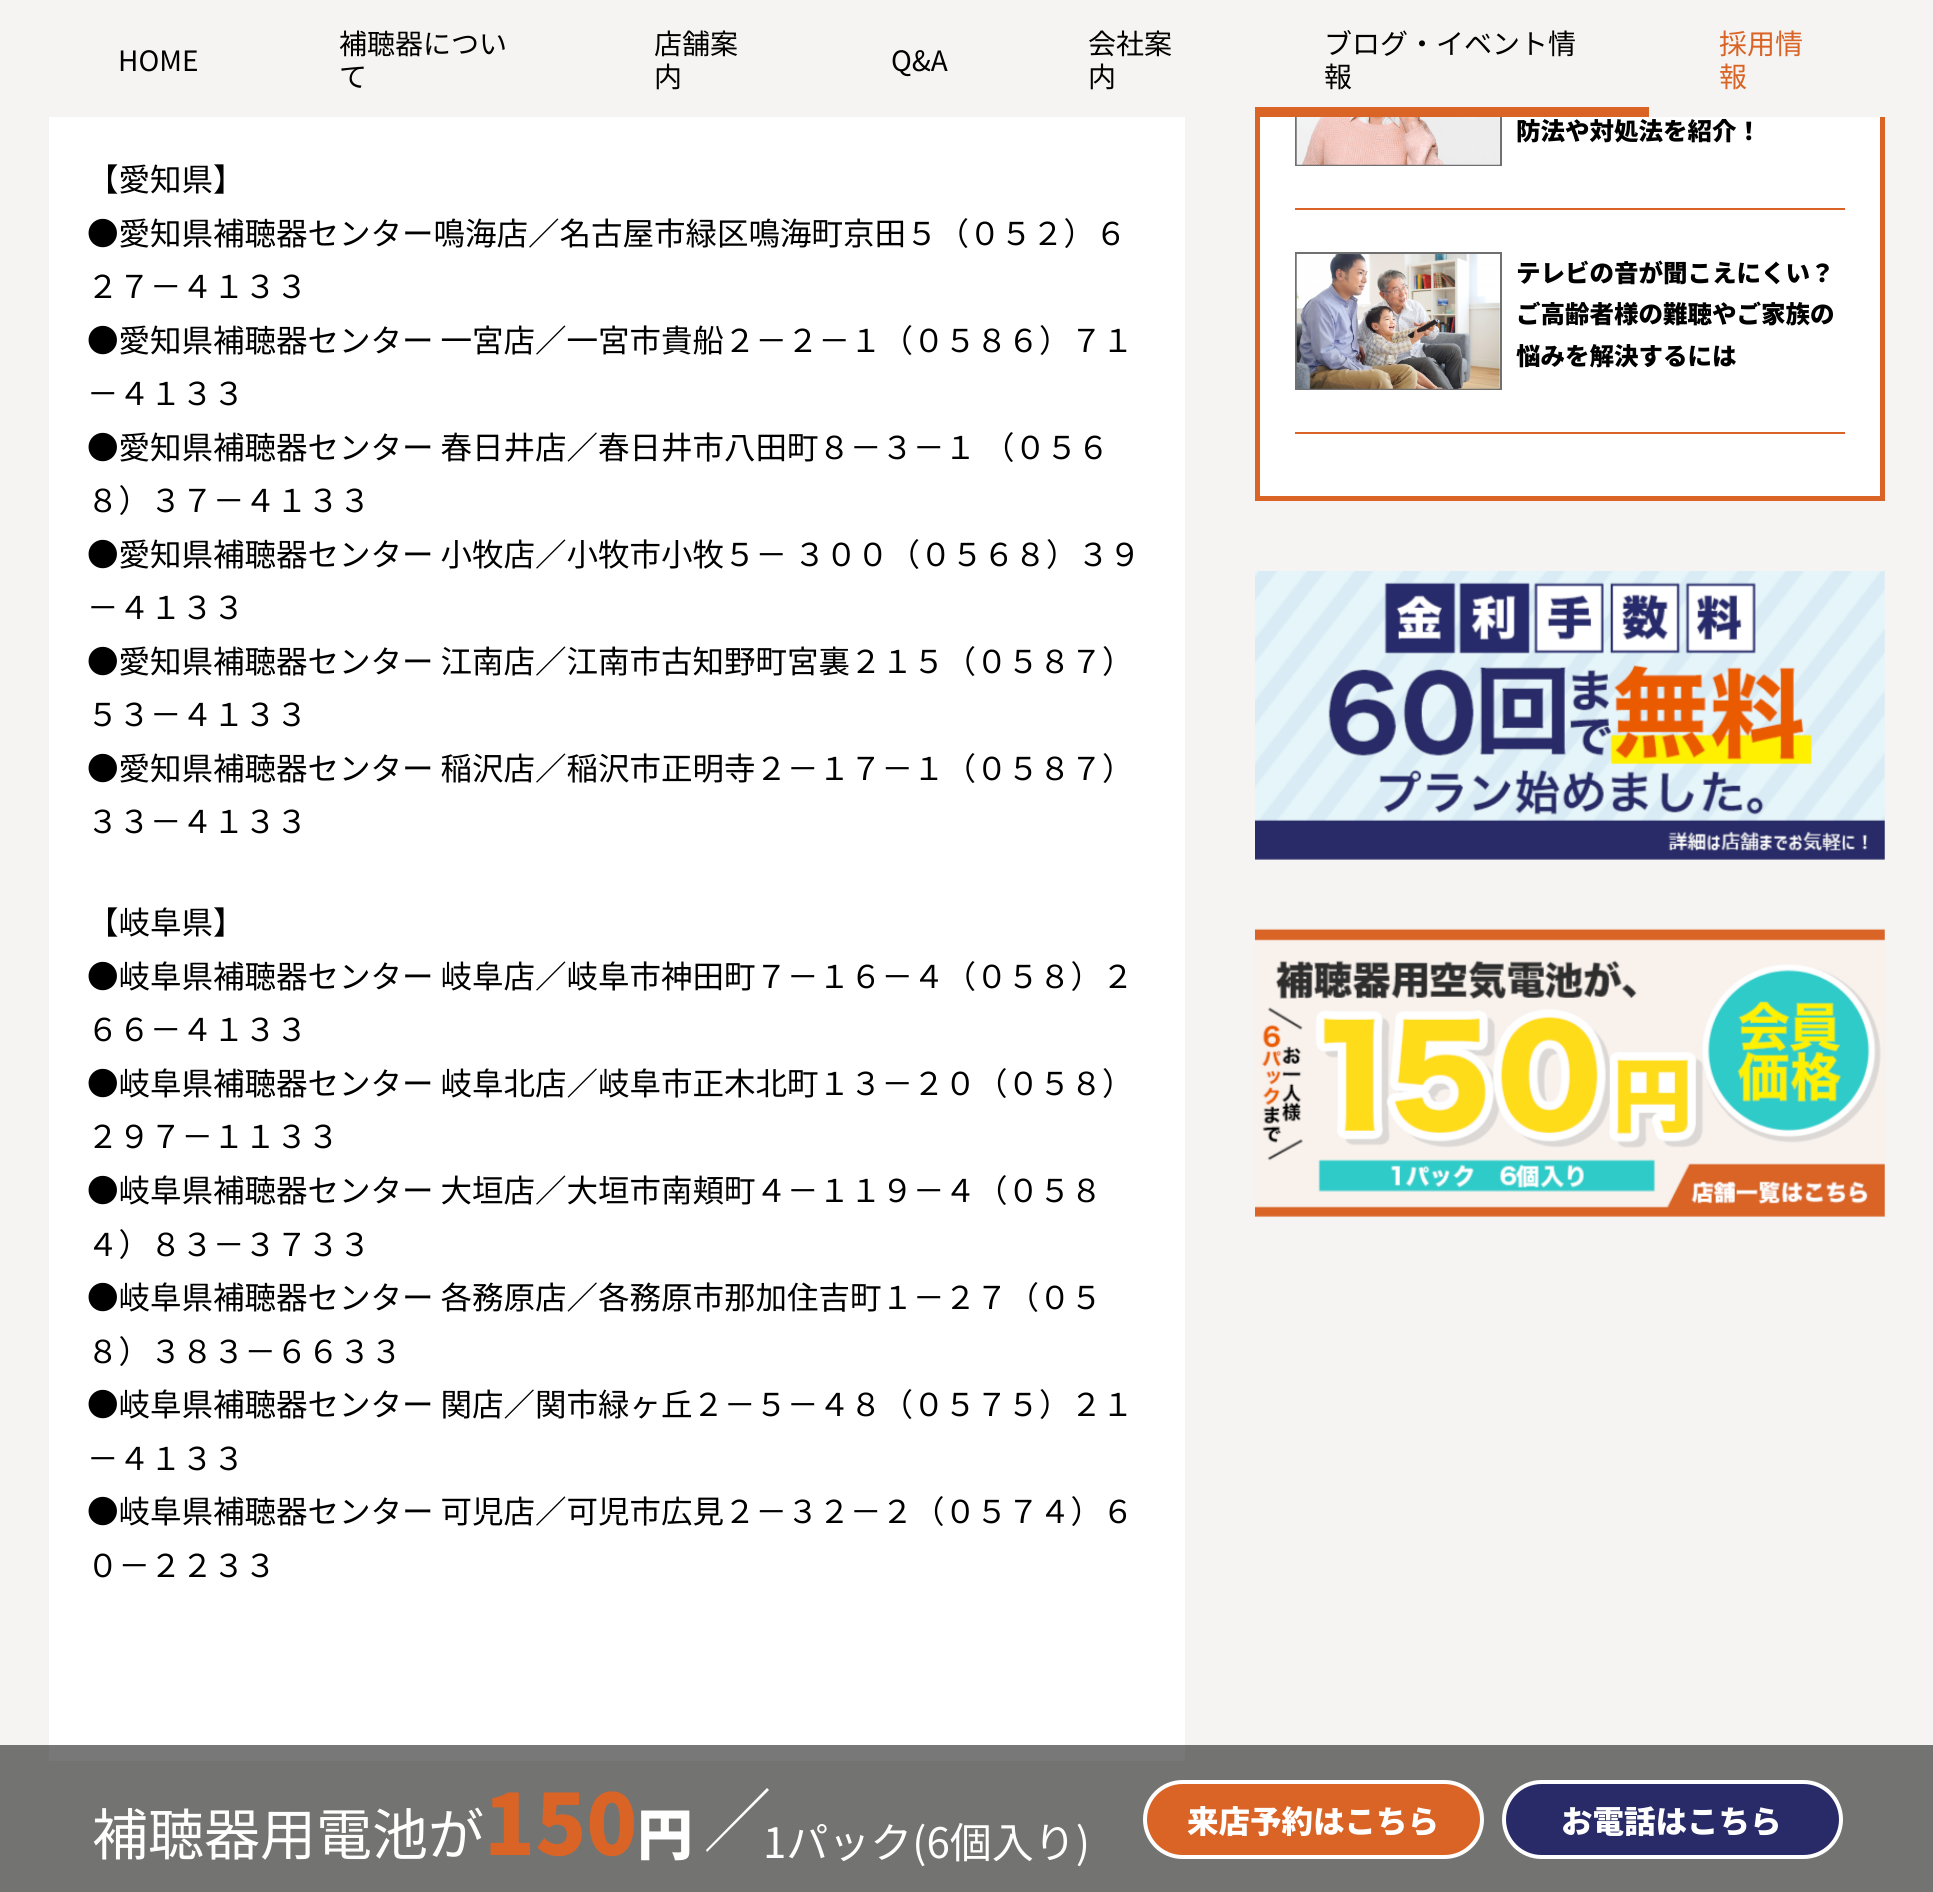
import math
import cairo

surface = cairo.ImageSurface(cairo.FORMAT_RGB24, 1933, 1892)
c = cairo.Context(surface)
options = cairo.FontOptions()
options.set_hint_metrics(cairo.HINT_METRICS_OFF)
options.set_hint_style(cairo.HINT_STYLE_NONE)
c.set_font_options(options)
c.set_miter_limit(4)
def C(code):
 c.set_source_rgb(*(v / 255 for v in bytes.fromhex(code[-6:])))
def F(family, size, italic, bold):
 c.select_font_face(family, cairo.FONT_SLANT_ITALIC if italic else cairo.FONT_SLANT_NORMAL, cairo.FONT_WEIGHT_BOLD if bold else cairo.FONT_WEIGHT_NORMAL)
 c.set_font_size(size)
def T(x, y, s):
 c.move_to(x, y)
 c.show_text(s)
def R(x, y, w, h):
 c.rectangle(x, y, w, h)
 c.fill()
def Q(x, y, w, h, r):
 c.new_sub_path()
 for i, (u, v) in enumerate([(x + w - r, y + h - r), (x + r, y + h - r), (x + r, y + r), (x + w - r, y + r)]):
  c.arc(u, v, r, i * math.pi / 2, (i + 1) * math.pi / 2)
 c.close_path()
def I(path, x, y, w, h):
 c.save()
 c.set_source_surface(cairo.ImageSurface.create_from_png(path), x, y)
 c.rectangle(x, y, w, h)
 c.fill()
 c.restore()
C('f5f4f2')
c.paint()
C('ffffff')
R(1260,117,620,379)
c.rectangle(1257.5,-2.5,625,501)
C('d96426')
c.set_line_width(5)
c.stroke()
c.rectangle(1296,27,205,138)
C('707070')
c.set_line_width(2)
c.stroke()
C('f5f4f2')
R(1255,0,630,117)
F('Noto Sans JP',28,0,0)
C('000000')
T(118,71,'HOME')
T(339,54,'補聴器につい')
T(339,87,'て')
T(654,54,'店舗案')
T(654,87,'内')
T(891,71,'Q&A')
T(1088,54,'会社案')
T(1088,87,'内')
T(1324,54,'ブログ・イベント情')
T(1324,87,'報')
C('d96426')
R(1255,107,394,10)
T(1719,54,'採用情')
T(1719,87,'報')
C('737372')
R(0,1745,1933,147)
C('ffffff')
R(49,117,1136,1628)
C('787878')
R(49,1745,1136,16)
F('Noto Sans JP',31.5,0,0)
C('000000')
T(87,191,'【愛知県】')
T(87,245,'●愛知県補聴器センター鳴海店／名古屋市緑区鳴海町京田５（０５２）６')
T(87,298,'２７－４１３３')
T(87,352,'●愛知県補聴器センター 一宮店／一宮市貴船２－２－１（０５８６）７１')
T(87,405,'－４１３３')
T(87,459,'●愛知県補聴器センター 春日井店／春日井市八田町８－３－１ （０５６')
T(87,512,'８）３７－４１３３')
T(87,566,'●愛知県補聴器センター 小牧店／小牧市小牧５－ ３００（０５６８）３９')
T(87,619,'－４１３３')
T(87,673,'●愛知県補聴器センター 江南店／江南市古知野町宮裏２１５（０５８７）')
T(87,726,'５３－４１３３')
T(87,780,'●愛知県補聴器センター 稲沢店／稲沢市正明寺２－１７－１（０５８７）')
T(87,833,'３３－４１３３')
T(87,934,'【岐阜県】')
T(87,988,'●岐阜県補聴器センター 岐阜店／岐阜市神田町７－１６－４（０５８）２')
T(87,1041,'６６－４１３３')
T(87,1095,'●岐阜県補聴器センター 岐阜北店／岐阜市正木北町１３－２０（０５８）')
T(87,1148,'２９７－１１３３')
T(87,1202,'●岐阜県補聴器センター 大垣店／大垣市南頬町４－１１９－４（０５８')
T(87,1256,'４）８３－３７３３')
T(87,1309,'●岐阜県補聴器センター 各務原店／各務原市那加住吉町１－２７（０５')
T(87,1363,'８）３８３－６６３３')
T(87,1416,'●岐阜県補聴器センター 関店／関市緑ヶ丘２－５－４８（０５７５）２１')
T(87,1470,'－４１３３')
T(87,1523,'●岐阜県補聴器センター 可児店／可児市広見２－３２－２（０５７４）６')
T(87,1577,'０－２２３３')
C('d96426')
R(1295,208,550,2)
I('1.png',1296,117,204,48)
F('Noto Sans JP Black',24.5,0,0)
C('000000')
T(1516,140,'防法や対処法を紹介！')
C('d96426')
R(1295,432,550,2)
c.rectangle(1296,253,205,136)
C('707070')
c.stroke()
I('2.png',1296,254,204,135)
C('000000')
T(1516,282,'テレビの音が聞こえにくい？')
T(1516,323,'ご高齢者様の難聴やご家族の')
T(1516,365,'悩みを解決するには')
I('3.png',1255,571,630,289)
I('4.png',1255,928,630,289)
F('Noto Sans JP',56,0,0)
C('ffffff')
T(92,1855,'補聴器用電池が')
F('Noto Sans JP Black',84,0,0)
C('d96426')
T(484,1855,'150')
F('Noto Sans JP Black',56,0,0)
C('ffffff')
T(637,1855,'円')
c.new_path()
c.move_to(706,1850)
c.line_to(767,1788)
c.line_to(769,1790)
c.line_to(707,1852)
c.close_path()
c.fill()
F('Noto Sans JP',42,0,0)
T(763,1858,'1パック(6個入り)')
C('d96426')
Q(1145,1782,337,75,37.5)
c.fill_preserve()
C('ffffff')
c.set_line_width(4)
c.stroke()
F('Noto Sans JP Black',31.5,0,0)
T(1187,1833,'来店予約はこちら')
C('282b67')
Q(1504,1782,337,75,37.5)
c.fill_preserve()
C('ffffff')
c.stroke()
T(1561,1833,'お電話はこちら')
surface.write_to_png('o.png')
